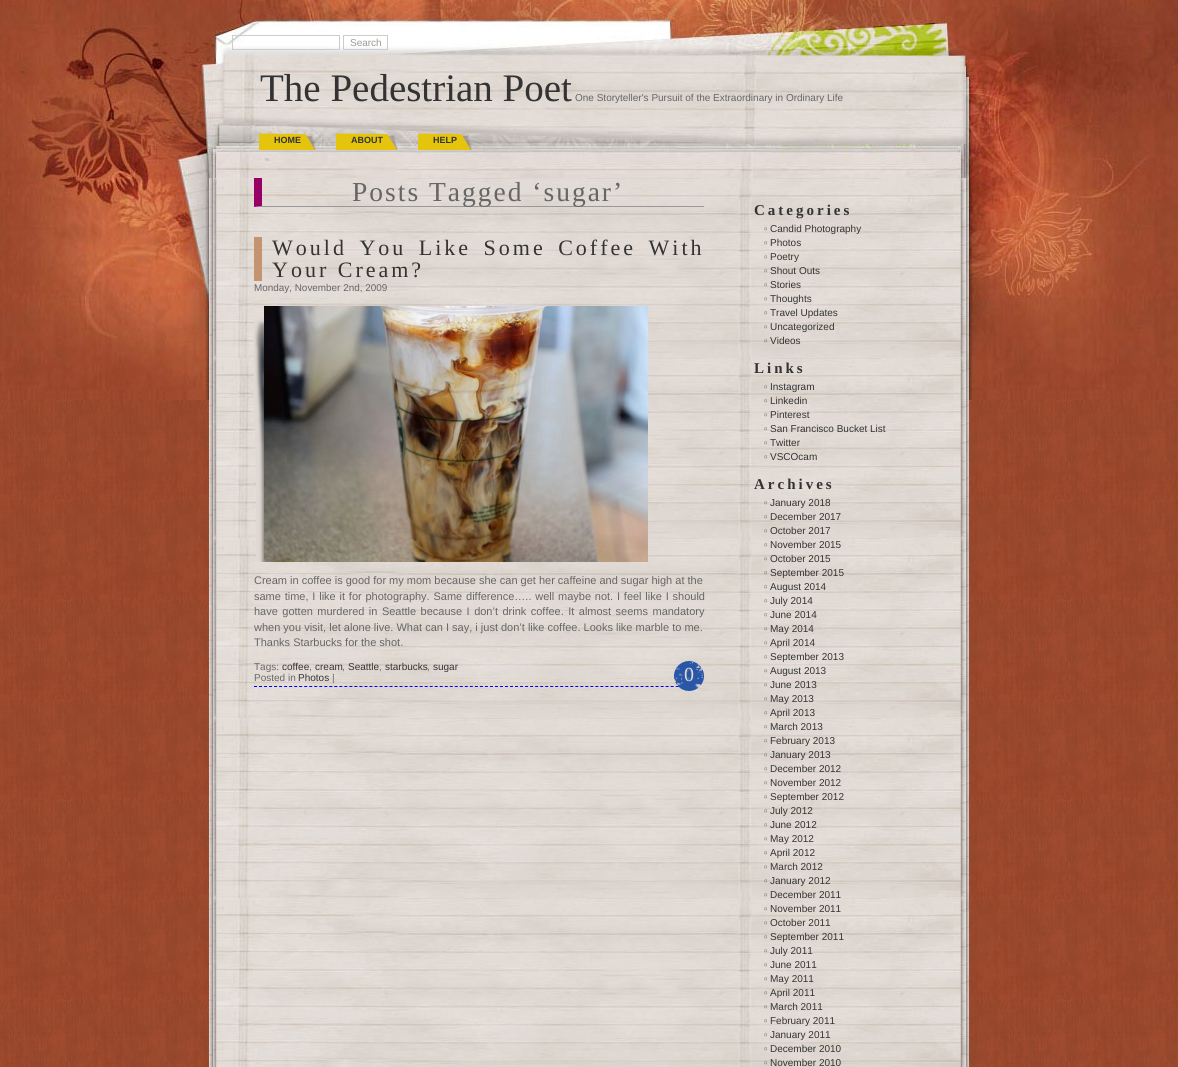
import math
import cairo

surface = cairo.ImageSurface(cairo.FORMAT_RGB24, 1178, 1067)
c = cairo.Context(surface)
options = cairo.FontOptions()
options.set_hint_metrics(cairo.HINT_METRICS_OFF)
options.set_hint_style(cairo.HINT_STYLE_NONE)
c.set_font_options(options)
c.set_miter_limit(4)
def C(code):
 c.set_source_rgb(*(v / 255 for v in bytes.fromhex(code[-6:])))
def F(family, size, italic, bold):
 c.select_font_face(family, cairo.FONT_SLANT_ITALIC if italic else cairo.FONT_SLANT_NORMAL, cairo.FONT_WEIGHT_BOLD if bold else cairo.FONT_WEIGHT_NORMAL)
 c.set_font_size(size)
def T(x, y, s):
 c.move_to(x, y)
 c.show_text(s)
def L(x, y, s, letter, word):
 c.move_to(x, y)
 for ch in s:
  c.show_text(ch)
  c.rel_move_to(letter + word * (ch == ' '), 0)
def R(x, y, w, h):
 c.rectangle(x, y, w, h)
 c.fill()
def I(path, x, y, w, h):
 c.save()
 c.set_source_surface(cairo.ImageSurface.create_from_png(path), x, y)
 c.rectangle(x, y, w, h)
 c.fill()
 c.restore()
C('ffffff')
c.paint()
I('1.png',0,400,1178,667)
I('2.png',0,0,1178,400)
c.rectangle(232.5,35.5,107,14)
C('cccccc')
c.set_line_width(1)
c.stroke()
c.rectangle(343.5,35.5,44,14)
c.stroke()
F('Liberation Sans',10,0,0)
C('999999')
T(350,46,'Search')
F('Liberation Serif',39,0,0)
C('333333')
T(260,101,'The Pedestrian Poet')
F('Liberation Sans',10,0,0)
C('666666')
T(575,101,'One Storyteller\'s Pursuit of the Extraordinary in Ordinary Life')
I('3.png',259,133,57,17)
F('Liberation Sans',9,0,1)
C('333333')
T(274,143,'HOME')
I('4.png',336,133,62,17)
T(351,143,'ABOUT')
I('5.png',418,133,54,17)
T(433,143,'HELP')
I('6.png',209,178,760,889)
C('999999')
c.new_path()
c.move_to(704,207)
c.line_to(254,207)
c.line_to(262,206)
c.line_to(704,206)
c.close_path()
c.fill()
C('990066')
c.new_path()
c.move_to(254,207)
c.line_to(254,178)
c.line_to(262,178)
c.line_to(262,206)
c.close_path()
c.fill()
F('Liberation Serif',27.5,0,0)
C('666666')
L(352,201,'Posts Tagged ‘sugar’',2,0)
C('c4936f')
R(254,237,8,44)
F('Liberation Serif',22,0,0)
C('333333')
L(272,255,'Would You Like Some Coffee With',3,4)
L(272,277,'Your Cream?',3,0)
F('Liberation Sans',9.9,0,0)
C('666666')
T(254,291,'Monday, November 2nd, 2009')
I('7.png',254,306,394,256)
F('Liberation Sans',11,0,0)
T(254,584,'Cream in coffee is good for my mom because she can get her caffeine and sugar high at the')
L(254,600,'same time, I like it for photography. Same difference….. well maybe not. I feel like I should',0,.75)
L(254,615,'have gotten murdered in Seattle because I don’t drink coffee. It almost seems mandatory',0,1.4)
T(254,631,'when you visit, let alone live. What can I say, i just don’t like coffee. Looks like marble to me.')
T(254,646,'Thanks Starbucks for the shot.')
c.new_path()
c.move_to(254,686.5)
c.line_to(694,686.5)
C('0000ff')
c.set_dash([3,2.02])
c.stroke()
F('Liberation Sans',10,0,0)
C('666666')
T(254,670,'Tags:')
C('333333')
T(282,670,'coffee')
C('666666')
T(309,670,',')
C('333333')
T(315,670,'cream')
C('666666')
T(342,670,',')
C('333333')
T(348,670,'Seattle')
C('666666')
T(379,670,',')
C('333333')
T(385,670,'starbucks')
C('666666')
T(427,670,',')
C('333333')
T(433,670,'sugar')
C('666666')
T(254,681,'Posted in')
C('333333')
T(298,681,'Photos')
C('666666')
T(332,681,'|')
I('8.png',674,661,30,30)
F('Liberation Serif',20,0,0)
C('e0d9d3')
T(684,681,'0')
F('Liberation Serif',15,0,1)
C('333333')
L(754,215,'Categories',3,0)
F('Liberation Sans',10,0,0)
C('666666')
T(764,232,'▫')
C('333333')
T(770,232,'Candid Photography')
C('666666')
T(764,246,'▫')
C('333333')
T(770,246,'Photos')
C('666666')
T(764,260,'▫')
C('333333')
T(770,260,'Poetry')
C('666666')
T(764,274,'▫')
C('333333')
T(770,274,'Shout Outs')
C('666666')
T(764,288,'▫')
C('333333')
T(770,288,'Stories')
C('666666')
T(764,302,'▫')
C('333333')
T(770,302,'Thoughts')
C('666666')
T(764,316,'▫')
C('333333')
T(770,316,'Travel Updates')
C('666666')
T(764,330,'▫')
C('333333')
T(770,330,'Uncategorized')
C('666666')
T(764,344,'▫')
C('333333')
T(770,344,'Videos')
F('Liberation Serif',15,0,1)
L(754,373,'Links',3,0)
F('Liberation Sans',10,0,0)
C('666666')
T(764,390,'▫')
C('333333')
T(770,390,'Instagram')
C('666666')
T(764,404,'▫')
C('333333')
T(770,404,'Linkedin')
C('666666')
T(764,418,'▫')
C('333333')
T(770,418,'Pinterest')
C('666666')
T(764,432,'▫')
C('333333')
T(770,432,'San Francisco Bucket List')
C('666666')
T(764,446,'▫')
C('333333')
T(770,446,'Twitter')
C('666666')
T(764,460,'▫')
C('333333')
T(770,460,'VSCOcam')
F('Liberation Serif',15,0,1)
L(754,489,'Archives',3,0)
F('Liberation Sans',10,0,0)
C('666666')
T(764,506,'▫')
C('333333')
T(770,506,'January 2018')
C('666666')
T(764,520,'▫')
C('333333')
T(770,520,'December 2017')
C('666666')
T(764,534,'▫')
C('333333')
T(770,534,'October 2017')
C('666666')
T(764,548,'▫')
C('333333')
T(770,548,'November 2015')
C('666666')
T(764,562,'▫')
C('333333')
T(770,562,'October 2015')
C('666666')
T(764,576,'▫')
C('333333')
T(770,576,'September 2015')
C('666666')
T(764,590,'▫')
C('333333')
T(770,590,'August 2014')
C('666666')
T(764,604,'▫')
C('333333')
T(770,604,'July 2014')
C('666666')
T(764,618,'▫')
C('333333')
T(770,618,'June 2014')
C('666666')
T(764,632,'▫')
C('333333')
T(770,632,'May 2014')
C('666666')
T(764,646,'▫')
C('333333')
T(770,646,'April 2014')
C('666666')
T(764,660,'▫')
C('333333')
T(770,660,'September 2013')
C('666666')
T(764,674,'▫')
C('333333')
T(770,674,'August 2013')
C('666666')
T(764,688,'▫')
C('333333')
T(770,688,'June 2013')
C('666666')
T(764,702,'▫')
C('333333')
T(770,702,'May 2013')
C('666666')
T(764,716,'▫')
C('333333')
T(770,716,'April 2013')
C('666666')
T(764,730,'▫')
C('333333')
T(770,730,'March 2013')
C('666666')
T(764,744,'▫')
C('333333')
T(770,744,'February 2013')
C('666666')
T(764,758,'▫')
C('333333')
T(770,758,'January 2013')
C('666666')
T(764,772,'▫')
C('333333')
T(770,772,'December 2012')
C('666666')
T(764,786,'▫')
C('333333')
T(770,786,'November 2012')
C('666666')
T(764,800,'▫')
C('333333')
T(770,800,'September 2012')
C('666666')
T(764,814,'▫')
C('333333')
T(770,814,'July 2012')
C('666666')
T(764,828,'▫')
C('333333')
T(770,828,'June 2012')
C('666666')
T(764,842,'▫')
C('333333')
T(770,842,'May 2012')
C('666666')
T(764,856,'▫')
C('333333')
T(770,856,'April 2012')
C('666666')
T(764,870,'▫')
C('333333')
T(770,870,'March 2012')
C('666666')
T(764,884,'▫')
C('333333')
T(770,884,'January 2012')
C('666666')
T(764,898,'▫')
C('333333')
T(770,898,'December 2011')
C('666666')
T(764,912,'▫')
C('333333')
T(770,912,'November 2011')
C('666666')
T(764,926,'▫')
C('333333')
T(770,926,'October 2011')
C('666666')
T(764,940,'▫')
C('333333')
T(770,940,'September 2011')
C('666666')
T(764,954,'▫')
C('333333')
T(770,954,'July 2011')
C('666666')
T(764,968,'▫')
C('333333')
T(770,968,'June 2011')
C('666666')
T(764,982,'▫')
C('333333')
T(770,982,'May 2011')
C('666666')
T(764,996,'▫')
C('333333')
T(770,996,'April 2011')
C('666666')
T(764,1010,'▫')
C('333333')
T(770,1010,'March 2011')
C('666666')
T(764,1024,'▫')
C('333333')
T(770,1024,'February 2011')
C('666666')
T(764,1038,'▫')
C('333333')
T(770,1038,'January 2011')
C('666666')
T(764,1052,'▫')
C('333333')
T(770,1052,'December 2010')
C('666666')
T(764,1066,'▫')
C('333333')
T(770,1066,'November 2010')
surface.write_to_png('o.png')
